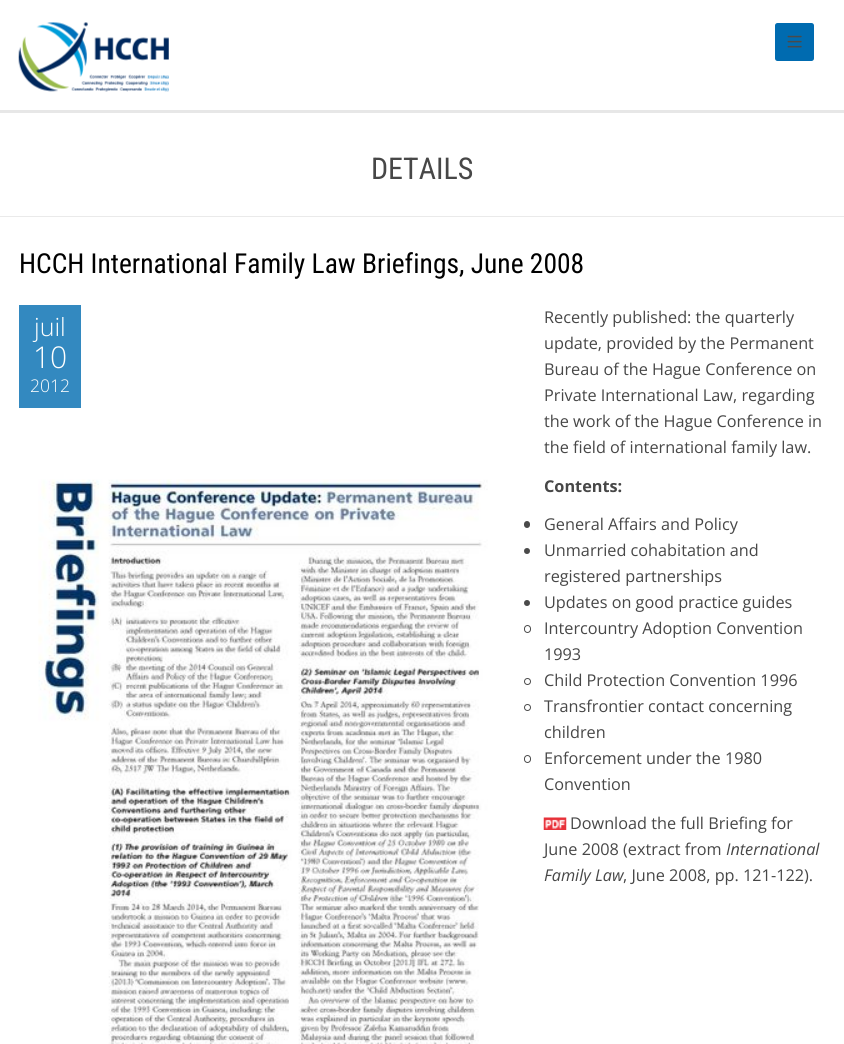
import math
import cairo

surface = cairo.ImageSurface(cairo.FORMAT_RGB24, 844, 1044)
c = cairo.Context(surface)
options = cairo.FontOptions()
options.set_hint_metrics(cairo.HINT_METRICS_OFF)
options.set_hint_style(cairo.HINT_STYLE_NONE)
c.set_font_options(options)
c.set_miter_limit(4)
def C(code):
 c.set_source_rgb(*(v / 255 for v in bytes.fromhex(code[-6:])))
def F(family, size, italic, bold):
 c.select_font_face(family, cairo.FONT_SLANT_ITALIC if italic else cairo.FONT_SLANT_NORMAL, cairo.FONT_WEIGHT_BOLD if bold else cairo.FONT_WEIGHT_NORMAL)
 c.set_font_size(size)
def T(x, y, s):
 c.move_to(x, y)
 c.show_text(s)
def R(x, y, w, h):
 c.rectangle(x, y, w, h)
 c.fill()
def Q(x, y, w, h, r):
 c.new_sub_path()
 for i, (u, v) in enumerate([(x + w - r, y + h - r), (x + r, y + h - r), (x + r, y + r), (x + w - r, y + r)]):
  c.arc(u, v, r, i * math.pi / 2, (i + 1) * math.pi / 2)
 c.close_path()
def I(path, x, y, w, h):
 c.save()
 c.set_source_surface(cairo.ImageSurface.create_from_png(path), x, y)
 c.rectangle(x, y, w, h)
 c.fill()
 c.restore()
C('ffffff')
c.paint()
C('e7e7e7')
R(0,110,844,3)
I('1.png',18,22,151,70)
C('006bb0')
Q(775,23,39,38,2.5)
c.fill()
I('2.png',787,35,15,13)
C('eaeaea')
R(0,216,844,1)
F('Roboto Condensed',30,0,0)
C('474747')
T(371,179,'DETAILS')
F('Roboto Condensed',27.5,0,0)
C('000000')
T(19,273,'HCCH International Family Law Briefings, June 2008')
C('3389c0')
R(19,305,62,103)
F('Open Sans Light',25,0,0)
C('ffffff')
T(34,336,'juil')
F('Open Sans Light',30,0,0)
T(33,368,'10')
F('Open Sans Light',17.5,0,0)
T(30,392,'2012')
I('3.png',38,479,450,565)
F('Open Sans',16.25,0,0)
C('474747')
T(544,323,'Recently published: the quarterly')
T(544,349,'update, provided by the Permanent')
T(544,375,'Bureau of the Hague Conference on')
T(544,401,'Private International Law, regarding')
T(544,427,'the work of the Hague Conference in')
T(544,453,'the field of international family law.')
F('Open Sans',16.25,0,1)
T(544,492,'Contents:')
C('4a4a4a')
Q(524,521,6,7,3)
c.fill()
F('Open Sans',16.25,0,0)
C('474747')
T(544,530,'General Affairs and Policy')
C('4a4a4a')
c.new_path()
c.arc(527,551,3,0,2 * math.pi)
c.fill()
C('474747')
T(544,556,'Unmarried cohabitation and')
T(544,582,'registered partnerships')
C('4a4a4a')
c.new_path()
c.arc(527,603,3,0,2 * math.pi)
c.fill()
C('474747')
T(544,608,'Updates on good practice guides')
Q(524.5,625.5,6,7,3)
C('4a4a4a')
c.set_line_width(1)
c.stroke()
C('474747')
T(544,634,'Intercountry Adoption Convention')
T(544,660,'1993')
c.new_path()
c.arc(527.5,681.5,3,0,2 * math.pi)
C('4a4a4a')
c.stroke()
C('474747')
T(544,686,'Child Protection Convention 1996')
c.new_path()
c.arc(527.5,707.5,3,0,2 * math.pi)
C('4a4a4a')
c.stroke()
C('474747')
T(544,712,'Transfrontier contact concerning')
T(544,738,'children')
Q(524.5,755.5,6,7,3)
C('4a4a4a')
c.stroke()
C('474747')
T(544,764,'Enforcement under the 1980')
T(544,790,'Convention')
I('4.png',543,817,24,13)
T(570,829,'Download the full Briefing for')
T(544,855,'June 2008 (extract from')
F('Open Sans',16.25,1,0)
T(726,855,'International')
T(544,881,'Family Law')
F('Open Sans',16.25,0,0)
T(623,881,', June 2008, pp. 121-122).')
surface.write_to_png('o.png')
